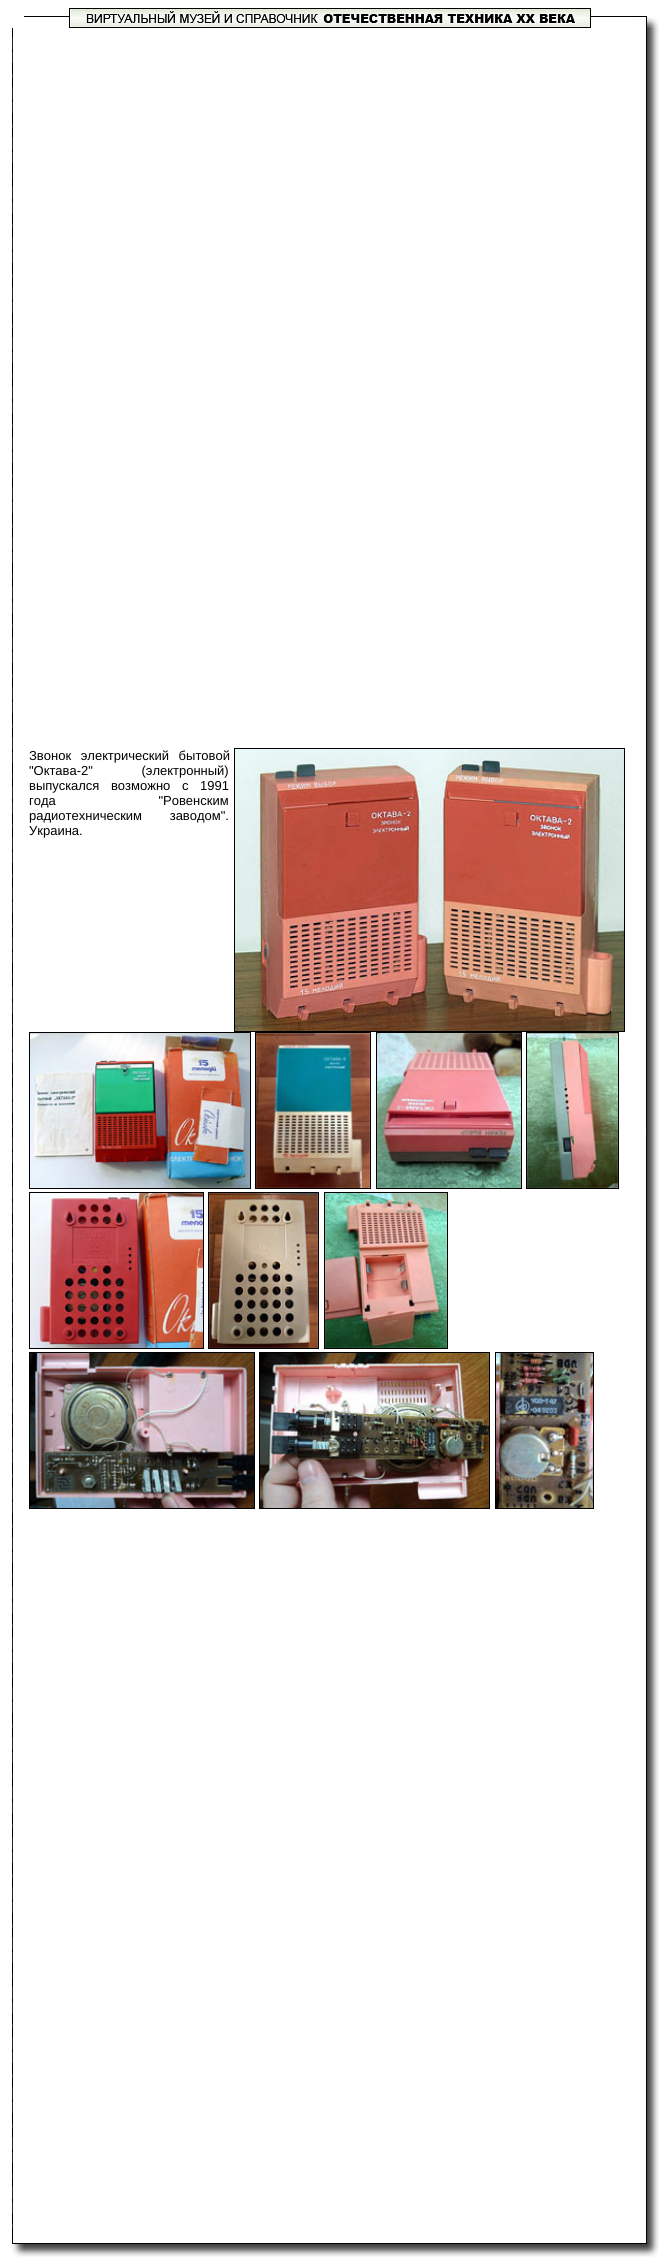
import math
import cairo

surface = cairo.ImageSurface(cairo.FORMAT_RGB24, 668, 2266)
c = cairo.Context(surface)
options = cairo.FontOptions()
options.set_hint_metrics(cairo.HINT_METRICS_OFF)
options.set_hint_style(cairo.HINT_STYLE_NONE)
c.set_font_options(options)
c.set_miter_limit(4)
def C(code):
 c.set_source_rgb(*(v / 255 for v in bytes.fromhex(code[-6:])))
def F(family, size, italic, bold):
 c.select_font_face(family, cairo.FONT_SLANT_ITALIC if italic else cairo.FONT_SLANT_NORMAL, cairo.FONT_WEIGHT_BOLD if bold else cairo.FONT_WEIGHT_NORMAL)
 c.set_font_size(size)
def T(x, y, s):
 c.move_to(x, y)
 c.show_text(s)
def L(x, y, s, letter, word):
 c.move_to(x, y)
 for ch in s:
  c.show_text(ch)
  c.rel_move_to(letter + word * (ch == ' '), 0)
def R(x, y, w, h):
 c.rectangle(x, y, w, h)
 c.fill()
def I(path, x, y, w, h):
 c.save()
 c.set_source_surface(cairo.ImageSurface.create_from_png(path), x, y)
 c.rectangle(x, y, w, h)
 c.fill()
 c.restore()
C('ffffff')
c.paint()
C('020202')
R(24,16,611,1)
c.rectangle(69.5,8.5,521,19)
C('000000')
c.set_line_width(1)
c.stroke()
I('1.png',70,9,520,18)
I('2.png',635,16,24,12)
I('3.png',12,28,1,2204)
F('Liberation Sans',13,0,0)
L(29,760,'Звонок электрический бытовой',0,6)
L(29,775,'"Октава-2" (электронный)',0,45)
L(29,790,'выпускался возможно с 1991',0,8)
L(29,805,'года "Ровенским',0,99)
L(29,820,'радиотехническим заводом".',0,24)
T(29,835,'Украина.')
c.rectangle(29.5,1032.5,221,156)
c.stroke()
c.rectangle(255.5,1032.5,115,156)
c.stroke()
c.rectangle(376.5,1032.5,145,156)
c.stroke()
c.rectangle(526.5,1032.5,92,156)
c.stroke()
I('4.png',30,1033,220,155)
I('5.png',256,1033,114,155)
I('6.png',377,1033,144,155)
I('7.png',527,1033,91,155)
c.rectangle(29.5,1192.5,174,156)
c.stroke()
c.rectangle(208.5,1192.5,110,156)
c.stroke()
c.rectangle(324.5,1192.5,123,156)
c.stroke()
I('8.png',30,1193,173,155)
I('9.png',209,1193,109,155)
I('10.png',325,1193,122,155)
c.rectangle(29.5,1352.5,225,156)
c.stroke()
c.rectangle(259.5,1352.5,230,156)
c.stroke()
c.rectangle(495.5,1352.5,98,156)
c.stroke()
I('11.png',30,1353,224,155)
I('12.png',260,1353,229,155)
I('13.png',496,1353,97,155)
c.rectangle(234.5,748.5,390,283)
c.stroke()
I('14.png',235,749,389,282)
I('15.png',646,28,13,2204)
F('Liberation Sans',10,0,0)
C('333333')
T(646,1134,'i')
I('16.png',12,2232,12,25)
I('17.png',24,2243,611,14)
I('18.png',635,2232,24,25)
surface.write_to_png('o.png')
